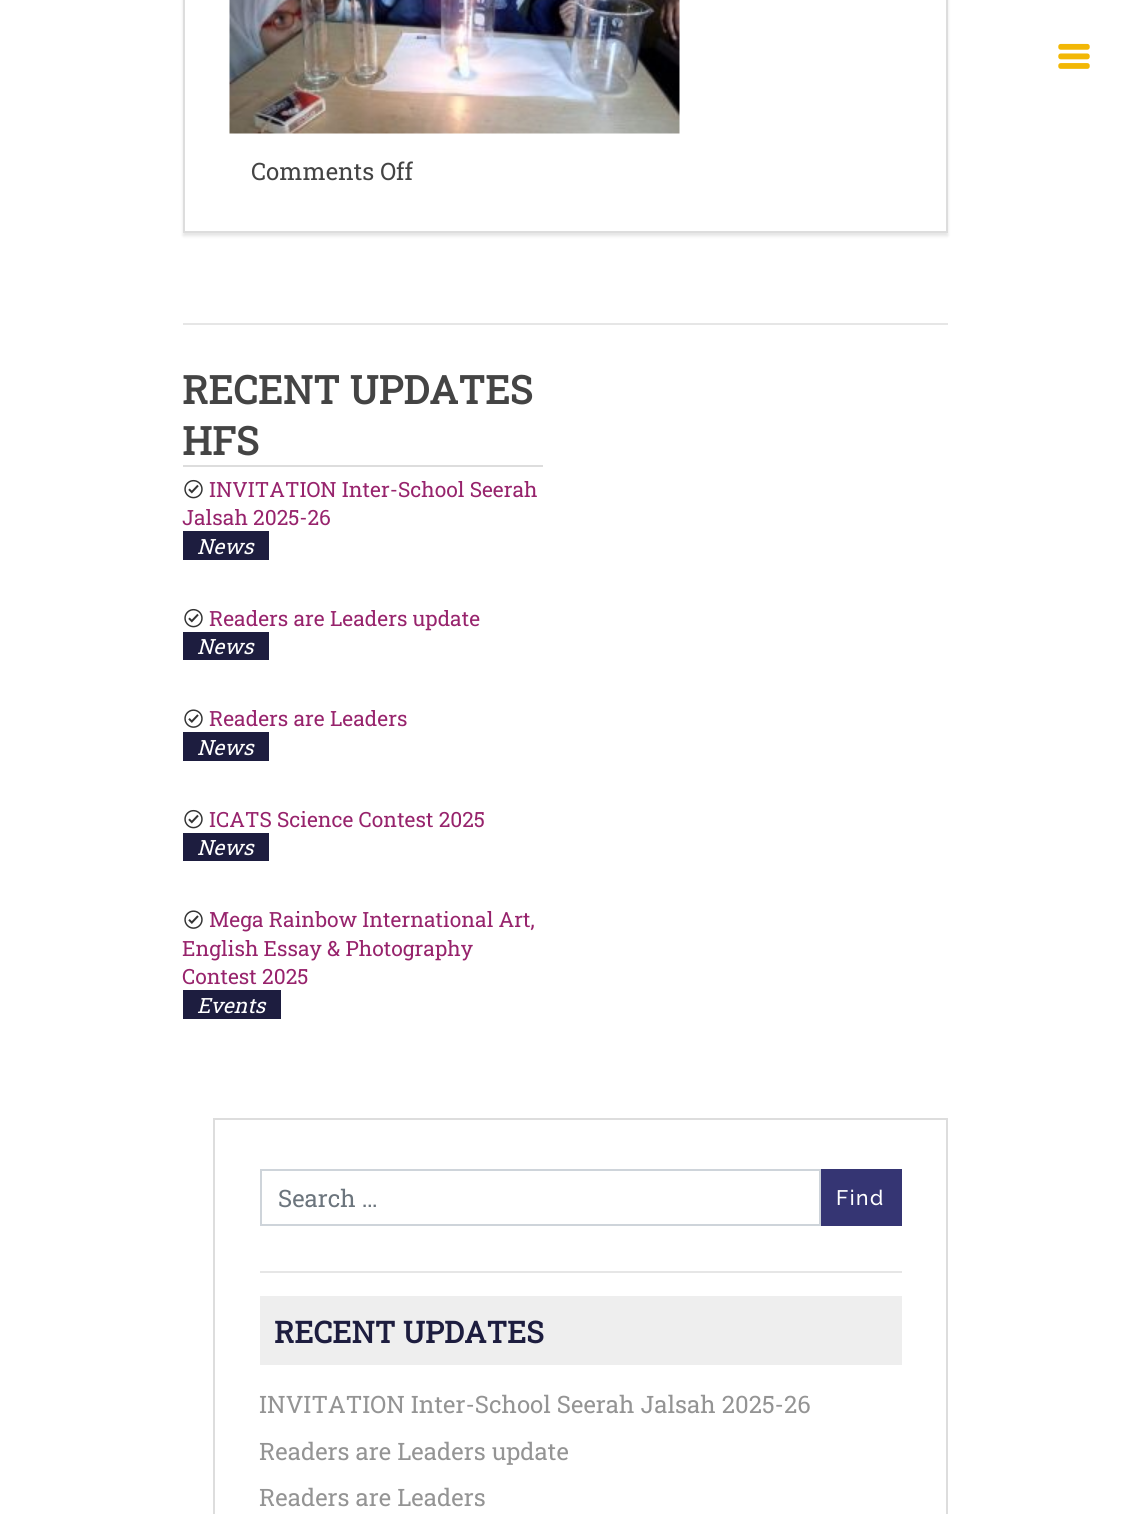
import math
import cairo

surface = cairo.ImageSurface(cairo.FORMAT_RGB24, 1129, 1514)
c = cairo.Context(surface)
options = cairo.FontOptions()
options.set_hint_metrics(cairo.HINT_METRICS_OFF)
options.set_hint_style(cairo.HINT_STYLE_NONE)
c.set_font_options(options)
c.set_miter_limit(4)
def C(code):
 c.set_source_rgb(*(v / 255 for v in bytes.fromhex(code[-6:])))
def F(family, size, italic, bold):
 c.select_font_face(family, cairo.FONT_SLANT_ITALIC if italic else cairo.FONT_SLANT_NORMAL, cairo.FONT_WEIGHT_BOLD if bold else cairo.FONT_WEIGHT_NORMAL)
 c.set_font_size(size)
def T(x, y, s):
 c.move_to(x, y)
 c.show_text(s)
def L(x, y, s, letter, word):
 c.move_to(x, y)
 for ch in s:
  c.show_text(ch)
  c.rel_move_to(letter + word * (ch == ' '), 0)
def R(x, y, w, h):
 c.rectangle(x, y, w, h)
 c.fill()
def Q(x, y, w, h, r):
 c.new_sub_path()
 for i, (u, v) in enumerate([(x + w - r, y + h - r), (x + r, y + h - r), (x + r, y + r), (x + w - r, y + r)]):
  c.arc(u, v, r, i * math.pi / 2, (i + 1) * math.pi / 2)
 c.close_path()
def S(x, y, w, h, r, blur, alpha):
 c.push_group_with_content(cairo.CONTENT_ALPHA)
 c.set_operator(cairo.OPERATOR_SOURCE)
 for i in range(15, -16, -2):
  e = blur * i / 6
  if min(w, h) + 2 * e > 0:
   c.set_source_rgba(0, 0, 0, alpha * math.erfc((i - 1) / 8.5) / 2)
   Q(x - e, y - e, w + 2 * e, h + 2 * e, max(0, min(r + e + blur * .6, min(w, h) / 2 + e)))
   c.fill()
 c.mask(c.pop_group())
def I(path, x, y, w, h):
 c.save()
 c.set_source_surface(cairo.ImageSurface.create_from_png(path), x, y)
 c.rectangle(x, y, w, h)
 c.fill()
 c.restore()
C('ffffff')
c.paint()
I('1.png',1058,43,32,26)
c.save()
c.set_fill_rule(cairo.FILL_RULE_EVEN_ODD)
c.new_path()
c.move_to(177,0)
c.line_to(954,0)
c.line_to(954,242)
c.line_to(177,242)
c.close_path()
c.move_to(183,-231)
c.line_to(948,-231)
c.line_to(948,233)
c.line_to(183,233)
c.close_path()
c.clip()
C('000000')
S(183,-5,765,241,0,1.5,.1)
c.restore()
c.rectangle(184,-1,763,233)
C('dddddd')
c.stroke()
I('2.png',229,0,451,134)
F('Roboto Slab',24,0,0)
C('444444')
T(251,180,'Comments Off')
C('e6e6e6')
R(183,323,765,2)
C('dddddd')
R(183,465,360,2)
F('Roboto Slab',39,0,1)
C('444444')
T(182,404,'RECENT UPDATES')
T(182,455,'HFS')
I('3.png',184,479,19,20)
F('Roboto Slab',21,0,0)
C('97236c')
T(209,497,'INVITATION Inter-School Seerah')
T(182,525,'Jalsah 2025-26')
C('1d1d3f')
R(183,531,86,29)
F('Roboto Slab',21,1,0)
C('ffffff')
T(197,554,'News')
I('3.png',184,608,19,20)
F('Roboto Slab',21,0,0)
C('97236c')
T(209,626,'Readers are Leaders update')
C('1d1d3f')
R(183,632,86,28)
F('Roboto Slab',21,1,0)
C('ffffff')
T(197,654,'News')
I('4.png',184,709,19,19)
F('Roboto Slab',21,0,0)
C('97236c')
T(209,726,'Readers are Leaders')
C('1d1d3f')
R(183,732,86,29)
F('Roboto Slab',21,1,0)
C('ffffff')
T(197,755,'News')
I('3.png',184,809,19,20)
F('Roboto Slab',21,0,0)
C('97236c')
T(209,827,'ICATS Science Contest 2025')
C('1d1d3f')
R(183,833,86,28)
F('Roboto Slab',21,1,0)
C('ffffff')
T(197,855,'News')
I('4.png',184,910,19,19)
F('Roboto Slab',21,0,0)
C('97236c')
T(209,927,'Mega Rainbow International Art,')
T(182,956,'English Essay & Photography')
T(182,984,'Contest 2025')
C('1d1d3f')
R(183,990,98,29)
F('Roboto Slab',21,1,0)
C('ffffff')
T(197,1013,'Events')
c.rectangle(214,1119,733,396)
C('dddddd')
c.stroke()
c.rectangle(261,1170,559,55)
C('ced4da')
c.stroke()
F('Roboto Slab',24,0,0)
C('6c757d')
T(278,1207,'Search …')
C('353573')
R(821,1169,81,57)
F('Raleway Medium',21,0,0)
C('ffffff')
L(836,1205,'Find',1.5,0)
C('e6e6e6')
R(260,1271,642,2)
C('eeeeee')
R(260,1296,642,69)
F('Roboto Slab',30,0,1)
C('1d1d3f')
T(274,1343,'RECENT UPDATES')
F('Roboto Slab',24,0,0)
C('949494')
T(259,1413,'INVITATION Inter-School Seerah Jalsah 2025-26')
T(259,1460,'Readers are Leaders update')
T(259,1506,'Readers are Leaders')
surface.write_to_png('o.png')
